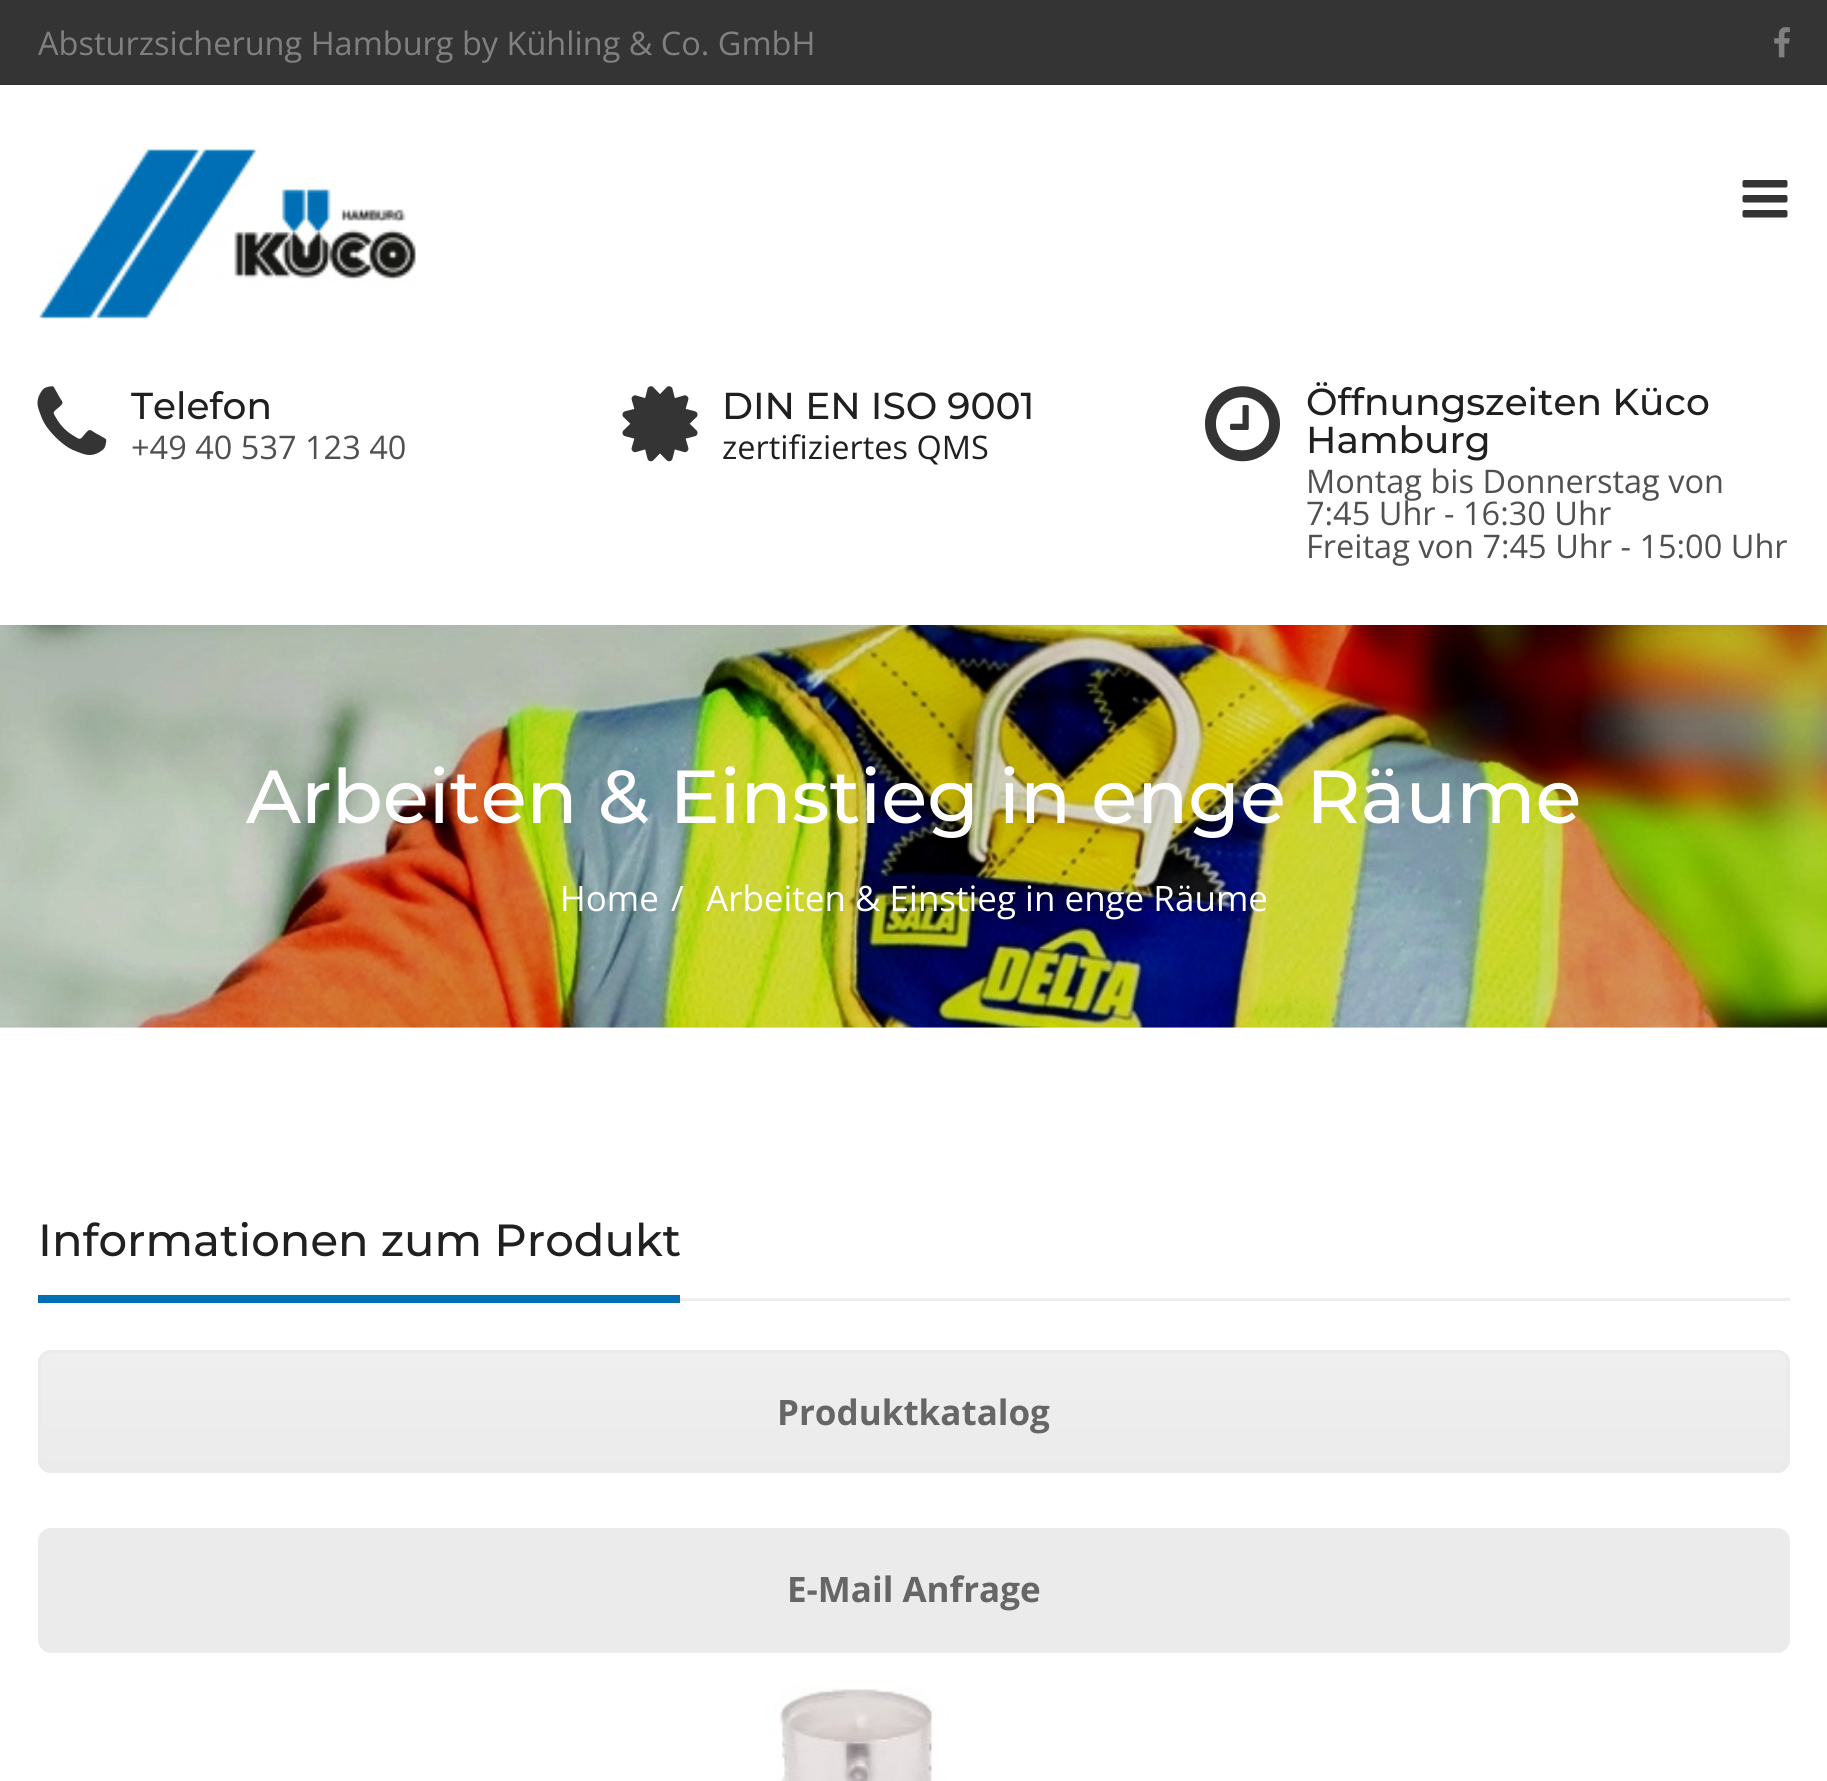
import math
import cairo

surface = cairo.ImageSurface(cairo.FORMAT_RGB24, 1827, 1781)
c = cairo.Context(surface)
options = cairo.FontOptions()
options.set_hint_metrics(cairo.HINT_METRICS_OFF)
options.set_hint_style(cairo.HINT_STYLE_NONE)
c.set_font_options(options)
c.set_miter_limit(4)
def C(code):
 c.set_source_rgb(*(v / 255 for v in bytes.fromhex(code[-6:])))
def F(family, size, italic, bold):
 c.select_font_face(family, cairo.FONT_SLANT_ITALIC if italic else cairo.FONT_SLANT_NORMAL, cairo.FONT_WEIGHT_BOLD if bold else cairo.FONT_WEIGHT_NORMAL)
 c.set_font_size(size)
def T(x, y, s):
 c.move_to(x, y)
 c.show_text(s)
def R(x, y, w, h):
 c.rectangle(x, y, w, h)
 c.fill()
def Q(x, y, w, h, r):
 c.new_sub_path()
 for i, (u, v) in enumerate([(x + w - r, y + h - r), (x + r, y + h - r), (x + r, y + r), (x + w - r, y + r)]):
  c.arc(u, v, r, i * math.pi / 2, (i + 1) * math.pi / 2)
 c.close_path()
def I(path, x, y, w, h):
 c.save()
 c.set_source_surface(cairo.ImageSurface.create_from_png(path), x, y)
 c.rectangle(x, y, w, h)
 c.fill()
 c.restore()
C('ffffff')
c.paint()
C('343434')
R(0,0,1827,85)
F('Open Sans',32.5,0,0)
C('808080')
T(38,55,'Absturzsicherung Hamburg by Kühling & Co. GmbH')
I('1.png',1774,27,16,31)
I('2.png',39,149,377,171)
I('3.png',1742,180,46,38)
I('4.png',37,386,70,69)
F('Montserrat Medium',37.5,0,0)
C('202020')
T(131,419,'Telefon')
F('Open Sans',32.5,0,0)
C('505050')
T(131,459,'+49 40 537 123 40')
I('5.png',622,386,76,76)
F('Montserrat Medium',37.5,0,0)
C('202020')
T(722,419,'DIN EN ISO 9001')
F('Open Sans',32.5,0,0)
T(722,459,'zertifiziertes QMS')
I('6.png',1205,386,75,76)
F('Montserrat Medium',37.5,0,0)
T(1306,415,'Öffnungszeiten Küco')
T(1306,453,'Hamburg')
F('Open Sans',32.5,0,0)
C('505050')
T(1306,493,'Montag bis Donnerstag von')
T(1306,525,'7:45 Uhr - 16:30 Uhr')
T(1306,558,'Freitag von 7:45 Uhr - 15:00 Uhr')
C('eeeeee')
R(0,1027,1827,1)
I('7.png',0,625,1827,403)
F('Montserrat Medium',75,0,0)
C('ffffff')
T(246,823,'Arbeiten & Einstieg in enge Räume')
F('Open Sans',35,0,0)
T(560,911,'Home')
T(671,911,'/')
T(706,911,'Arbeiten & Einstieg in enge Räume')
C('eeeeee')
R(680,1298,1110,3)
C('006fb4')
R(38,1295,642,8)
F('Montserrat Medium',45,0,0)
C('202020')
T(38,1256,'Informationen zum Produkt')
C('ebebeb')
Q(38,1350,1752,123,13)
c.fill()
c.save()
Q(38,1350,1752,123,13)
c.clip()
gradient = cairo.LinearGradient(914,1353,914,1470)
gradient.add_color_stop_rgba(0,1,1,1,.2)
gradient.add_color_stop_rgba(1,1,1,1,.01)
c.set_source(gradient)
R(38,1353,1752,110)
c.restore()
Q(39.5,1351.5,1749,120,11.5)
c.set_line_width(3)
c.stroke()
F('Open Sans',35,0,1)
C('666666')
T(777,1425,'Produktkatalog')
C('ebebeb')
Q(38,1528,1752,125,13)
c.fill()
C('666666')
T(787,1602,'E-Mail Anfrage')
I('8.png',48,1652,1732,129)
surface.write_to_png('o.png')
